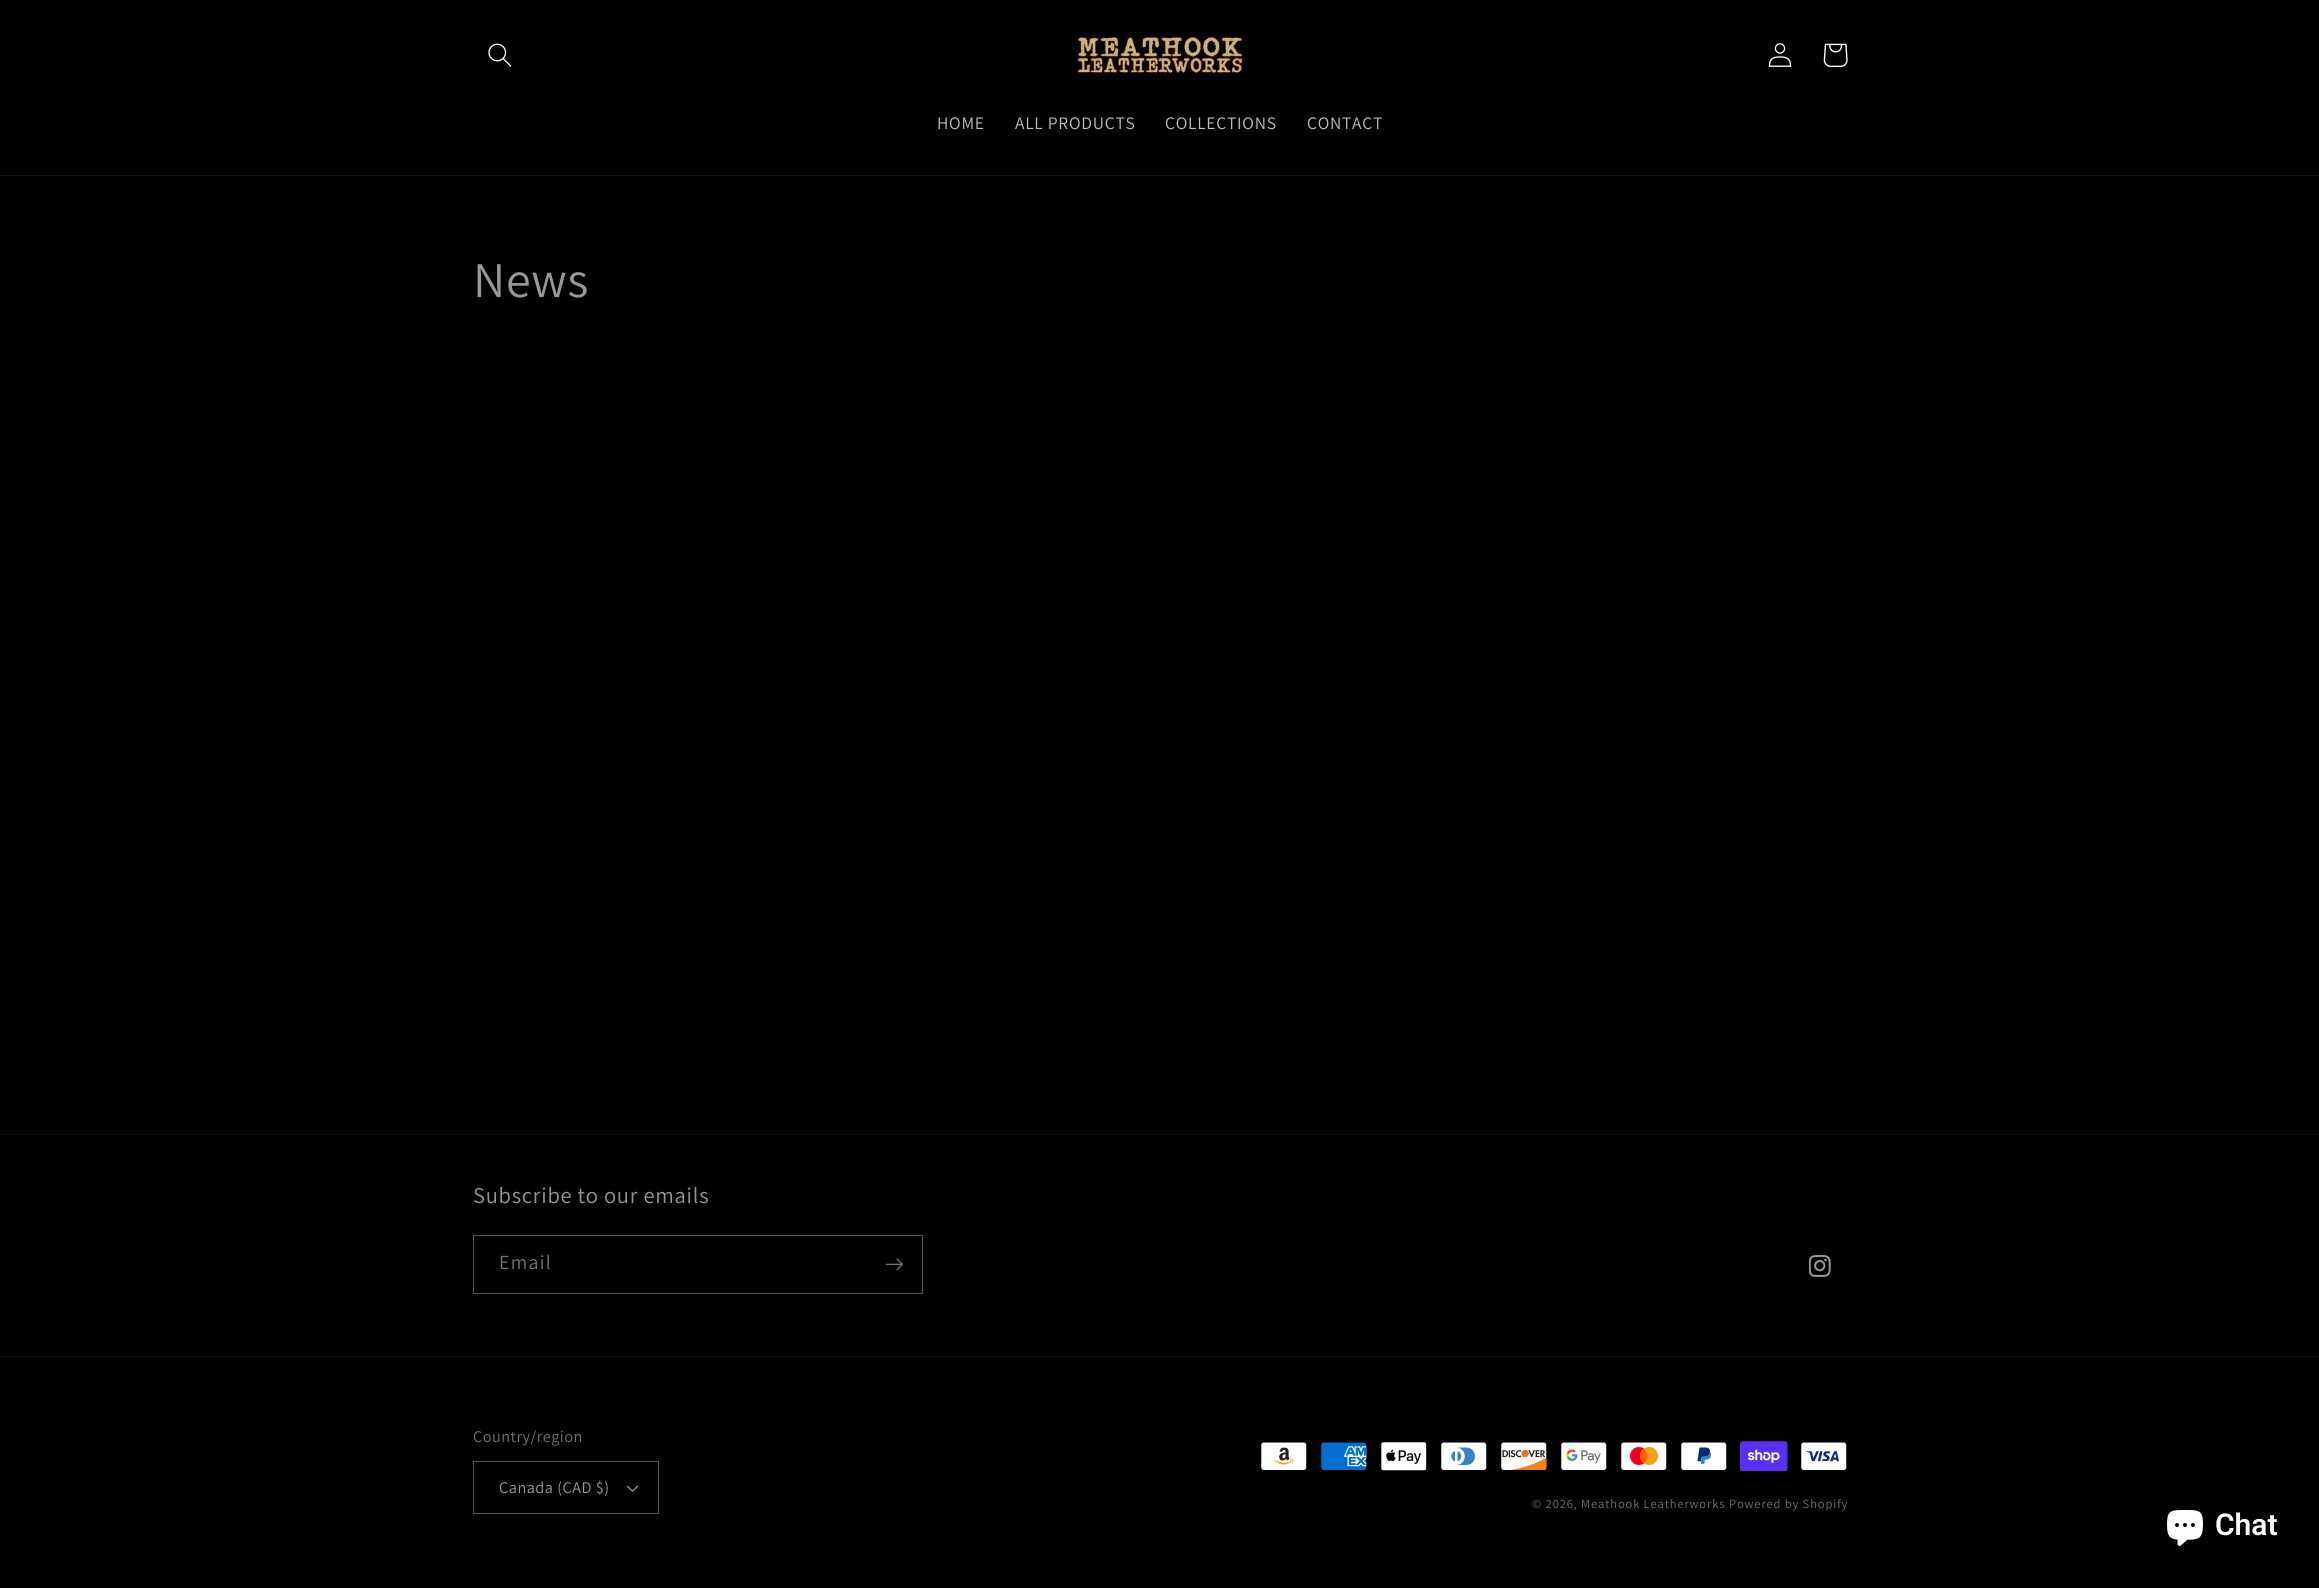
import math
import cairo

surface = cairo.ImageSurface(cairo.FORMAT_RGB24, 2319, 1588)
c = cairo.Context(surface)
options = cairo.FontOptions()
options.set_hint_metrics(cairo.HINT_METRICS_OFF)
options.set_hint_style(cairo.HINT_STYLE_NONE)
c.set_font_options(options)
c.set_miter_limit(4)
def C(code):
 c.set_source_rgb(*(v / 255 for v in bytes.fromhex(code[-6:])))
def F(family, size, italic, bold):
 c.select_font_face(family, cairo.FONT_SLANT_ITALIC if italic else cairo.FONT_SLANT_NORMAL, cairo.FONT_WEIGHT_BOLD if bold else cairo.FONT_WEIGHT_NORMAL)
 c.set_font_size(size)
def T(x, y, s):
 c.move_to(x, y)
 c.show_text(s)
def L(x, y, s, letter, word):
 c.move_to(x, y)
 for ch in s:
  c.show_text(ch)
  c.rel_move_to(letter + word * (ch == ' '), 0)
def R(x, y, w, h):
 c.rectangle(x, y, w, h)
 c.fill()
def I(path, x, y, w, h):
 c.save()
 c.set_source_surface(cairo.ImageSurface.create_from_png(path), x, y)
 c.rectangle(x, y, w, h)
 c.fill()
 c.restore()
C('000000')
c.paint()
C('141414')
R(0,175,2319,1)
I('1.png',488,43,24,24)
I('2.png',1075,35,169,40)
I('3.png',1768,43,24,24)
I('4.png',1823,43,25,24)
F('Assistant',17.5,0,0)
C('bfbfbf')
L(937,129,'HOME',.75,0)
L(1015,129,'ALL PRODUCTS',.75,0)
L(1165,129,'COLLECTIONS',.75,0)
L(1307,129,'CONTACT',.75,0)
F('Assistant',50,0,0)
C('989898')
L(473,297,'News',.75,0)
C('0c0c0c')
R(0,1134,2319,1)
F('Assistant',22.5,0,0)
C('989898')
L(473,1203,'Subscribe to our emails',.75,0)
c.rectangle(473.5,1235.5,449,58)
C('545454')
c.set_line_width(1)
c.stroke()
F('Assistant',20,0,0)
C('727272')
L(499,1269,'Email',1.25,0)
I('5.png',885,1258,18,13)
I('6.png',1809,1255,22,22)
C('0c0c0c')
R(0,1356,2319,1)
F('Assistant',16.25,0,0)
C('727272')
L(473,1442,'Country/region',.5,0)
I('7.png',626,1485,13,7)
c.rectangle(473.5,1461.5,185,52)
C('545454')
c.stroke()
C('989898')
L(499,1493,'Canada (CAD $)',.5,0)
I('8.png',1261,1442,46,28)
I('9.png',1321,1442,46,28)
I('10.png',1381,1442,46,29)
I('11.png',1441,1442,46,28)
I('12.png',1501,1442,46,28)
I('13.png',1561,1442,46,28)
I('14.png',1621,1442,46,28)
I('15.png',1681,1442,46,28)
I('16.png',1740,1441,48,30)
I('17.png',1801,1442,46,28)
F('Assistant',12.5,0,0)
C('727272')
L(1532,1508,'© 2026, Meathook Leatherworks',.9,0)
L(1729,1508,'Powered by Shopify',.9,0)
I('18.png',2167,1510,36,36)
F('Roboto SemiBold',30,0,0)
C('ffffff')
T(2215,1535,'Chat')
surface.write_to_png('o.png')
